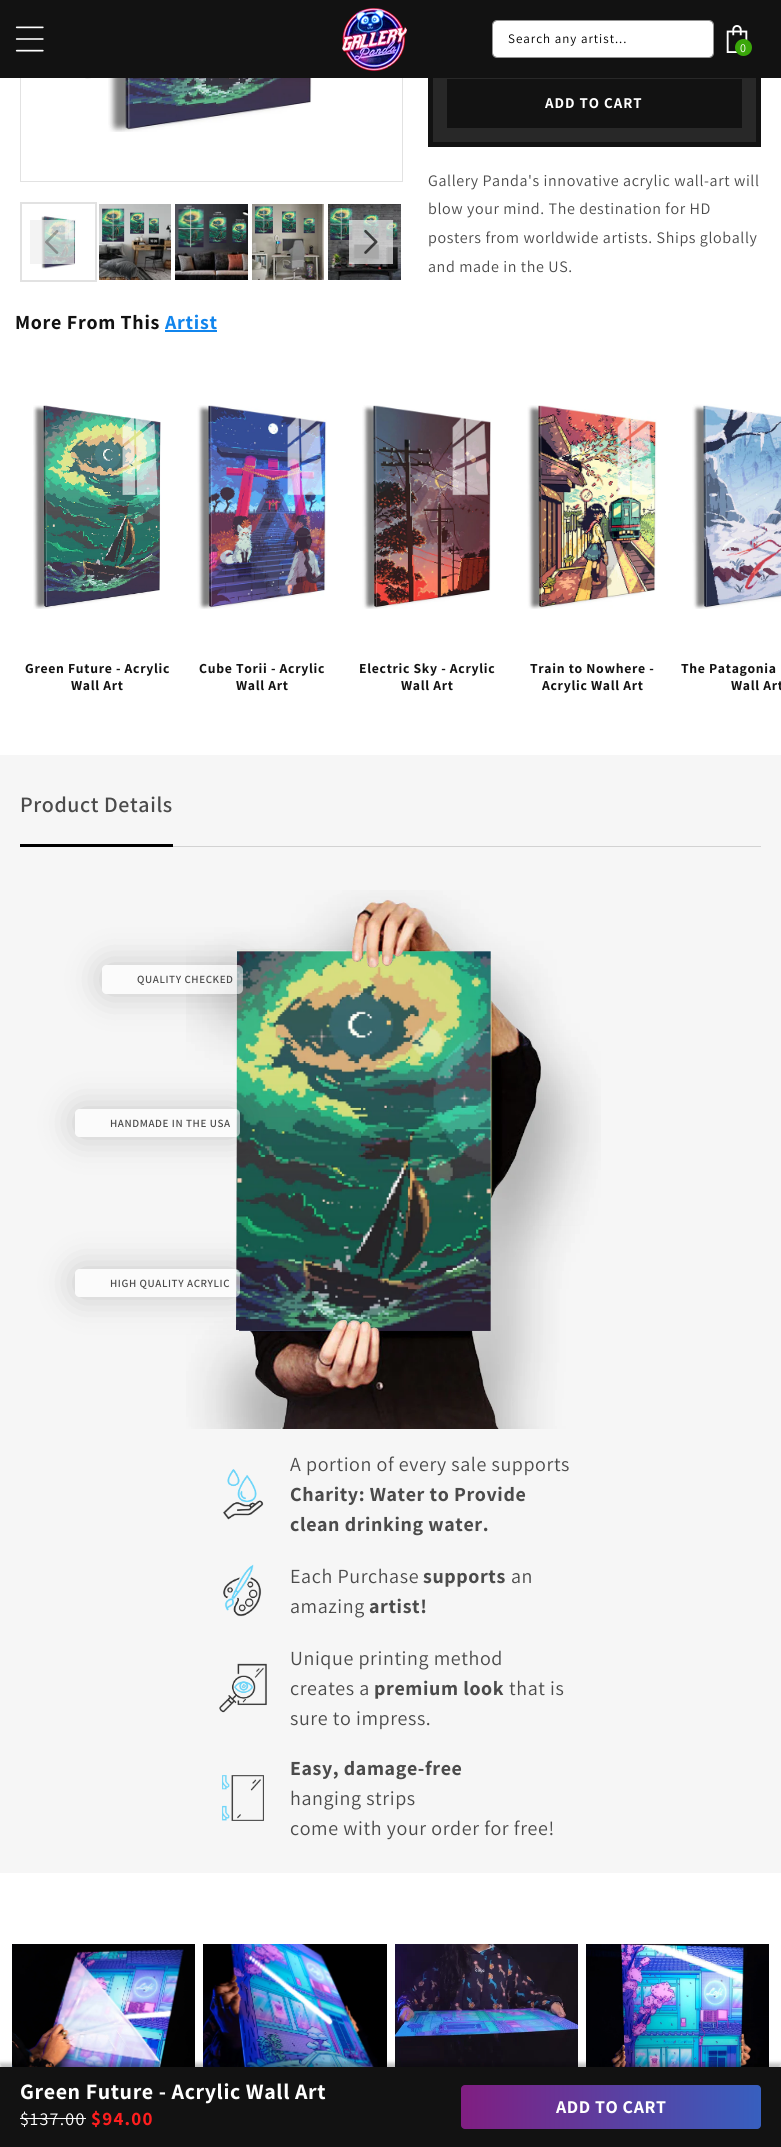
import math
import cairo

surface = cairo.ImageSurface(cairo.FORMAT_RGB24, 781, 2147)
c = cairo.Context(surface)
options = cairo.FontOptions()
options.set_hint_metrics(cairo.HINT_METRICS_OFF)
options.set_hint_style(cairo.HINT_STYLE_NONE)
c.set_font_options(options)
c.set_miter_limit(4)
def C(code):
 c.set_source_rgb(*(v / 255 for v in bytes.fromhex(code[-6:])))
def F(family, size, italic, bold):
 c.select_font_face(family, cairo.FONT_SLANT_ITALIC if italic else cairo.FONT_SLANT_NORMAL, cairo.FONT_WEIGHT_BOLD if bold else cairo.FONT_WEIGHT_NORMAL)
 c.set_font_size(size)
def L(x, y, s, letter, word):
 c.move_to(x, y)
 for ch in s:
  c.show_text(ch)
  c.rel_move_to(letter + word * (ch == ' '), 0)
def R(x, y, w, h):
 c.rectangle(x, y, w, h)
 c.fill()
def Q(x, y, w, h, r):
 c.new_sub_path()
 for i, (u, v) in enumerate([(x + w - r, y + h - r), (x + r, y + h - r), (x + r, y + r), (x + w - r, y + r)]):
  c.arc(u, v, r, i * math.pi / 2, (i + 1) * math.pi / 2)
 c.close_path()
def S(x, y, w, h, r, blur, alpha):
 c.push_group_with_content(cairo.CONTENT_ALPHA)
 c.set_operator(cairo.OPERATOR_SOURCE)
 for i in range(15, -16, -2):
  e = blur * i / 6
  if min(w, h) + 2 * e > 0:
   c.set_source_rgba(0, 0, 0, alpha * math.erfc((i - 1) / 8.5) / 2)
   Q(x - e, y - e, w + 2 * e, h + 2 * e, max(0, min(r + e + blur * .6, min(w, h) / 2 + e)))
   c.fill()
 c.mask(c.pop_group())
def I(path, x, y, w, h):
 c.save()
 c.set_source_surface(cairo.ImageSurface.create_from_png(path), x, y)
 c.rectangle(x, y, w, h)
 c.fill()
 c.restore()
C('ffffff')
c.paint()
c.rectangle(20.5,-.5,382,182)
C('e2e2e2')
c.set_line_width(1)
c.stroke()
C('282828')
R(433,78,323,64)
c.rectangle(430.5,-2.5,328,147)
C('121212')
c.set_line_width(5)
c.stroke()
R(0,0,781,78)
I('1.png',15,26,29,26)
I('2.png',342,8,65,63)
Q(492.5,20.5,221,37,4.5)
C('949494')
c.set_line_width(1)
c.stroke()
C('ffffff')
Q(493,21,220,36,4)
c.fill()
F('Assistant',13,0,0)
C('000000')
L(508,43,'Search any artist...',1,0)
I('3.png',726,25,22,28)
C('3aa60a')
c.arc(743.5,47.5,8.5,0,2 * math.pi)
c.fill()
F('Assistant',12,0,0)
C('ffffff')
L(740,52,'0',.6,0)
I('4.png',108,78,204,54)
I('5.png',85,78,6,1)
c.rectangle(21,203,75,78)
C('e2e2e2')
c.set_line_width(2)
c.stroke()
I('6.png',41,215,35,54)
I('7.png',66,219,9,18)
I('8.png',99,204,72,76)
I('9.png',102,208,23,34)
I('11.png',119,208,5,15)
I('10.png',102,208,22,34)
I('12.png',130,212,15,22)
I('13.png',141,212,3,10)
I('14.png',148,218,11,16)
I('15.png',156,218,3,7)
I('16.png',175,204,73,76)
I('17.png',178,209,26,39)
I('19.png',197,209,7,17)
I('18.png',178,209,26,39)
I('20.png',209,217,18,26)
I('21.png',222,217,5,11)
I('22.png',232,222,15,21)
I('23.png',242,223,5,9)
I('24.png',252,204,72,76)
I('25.png',254,206,19,28)
I('27.png',268,206,5,12)
I('26.png',255,206,18,28)
I('28.png',282,211,14,22)
I('29.png',292,211,4,9)
I('30.png',303,218,12,16)
I('31.png',311,218,4,7)
I('32.png',328,204,73,76)
I('33.png',330,208,23,32)
I('35.png',346,208,7,14)
I('34.png',330,208,23,32)
I('36.png',363,214,16,24)
I('37.png',375,214,4,11)
I('38.png',386,222,12,18)
I('39.png',395,222,3,8)
c.set_source_rgba(0.933,0.933,0.933,0.7)
R(30,220,44,44)
I('40.png',45,230,14,24)
R(349,220,44,44)
I('41.png',364,229,14,25)
c.rectangle(447.5,79.5,294,48)
C('121212')
c.set_line_width(1)
c.stroke()
R(448,80,293,47)
F('Assistant',15,0,1)
C('ffffff')
L(545,108,'ADD TO CART',1,0)
F('Assistant',16,0,0)
C('4b4b4b')
L(428,186,'Gallery Panda\'s innovative acrylic wall-art will',.6,0)
L(428,214,'blow your mind. The destination for HD',.6,0)
L(428,243,'posters from worldwide artists. Ships globally',.6,0)
L(428,272,'and made in the US.',.6,0)
F('Assistant',20,0,1)
C('121212')
L(15,329,'More From This',.7,0)
C('1185ed')
L(165,329,'Artist',.7,0)
R(165,330,52,2)
I('42.png',33,405,128,204)
F('Assistant',13.75,0,1)
C('121212')
L(25,673,'Green Future - Acrylic',.7,0)
L(71,690,'Wall Art',.7,0)
I('43.png',197,405,130,204)
L(199,673,'Cube Torii - Acrylic',.7,0)
L(236,690,'Wall Art',.7,0)
I('44.png',362,405,129,204)
L(359,673,'Electric Sky - Acrylic',.7,0)
L(401,690,'Wall Art',.7,0)
I('45.png',527,405,130,204)
L(530,673,'Train to Nowhere -',.7,0)
L(542,690,'Acrylic Wall Art',.7,0)
I('46.png',692,404,89,205)
L(681,673,'The Patagonia',.7,0)
L(731,690,'Wall Art',.7,0)
C('f6f6f6')
R(0,755,781,1118)
C('d2d2d2')
R(173,846,588,1)
C('000000')
R(20,844,153,3)
F('Assistant SemiBold',22,0,0)
C('4b4b4b')
L(20,812,'Product Details',.6,0)
I('48.png',236,949,255,382)
I('47.png',186,890,415,539)
c.save()
c.set_fill_rule(cairo.FILL_RULE_EVEN_ODD)
c.new_path()
c.move_to(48,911)
c.line_to(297,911)
c.line_to(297,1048)
c.line_to(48,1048)
c.close_path()
c.move_to(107,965)
c.line_to(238,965)
c.curve_to(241,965,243,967,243,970)
c.line_to(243,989)
c.curve_to(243,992,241,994,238,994)
c.line_to(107,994)
c.curve_to(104,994,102,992,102,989)
c.line_to(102,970)
c.curve_to(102,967,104,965,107,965)
c.close_path()
c.clip()
C('000000')
S(102,965,141,29,5,17.5,.2)
c.restore()
c.set_source_rgba(1,1,1,0.54)
Q(102,965,141,29,5)
c.fill()
F('Assistant SemiBold',11,0,0)
C('4b4b4b')
L(137,983,'QUALITY CHECKED',.6,0)
c.save()
c.set_fill_rule(cairo.FILL_RULE_EVEN_ODD)
c.new_path()
c.move_to(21,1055)
c.line_to(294,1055)
c.line_to(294,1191)
c.line_to(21,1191)
c.close_path()
c.move_to(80,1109)
c.line_to(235,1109)
c.curve_to(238,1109,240,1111,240,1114)
c.line_to(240,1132)
c.curve_to(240,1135,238,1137,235,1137)
c.line_to(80,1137)
c.curve_to(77,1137,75,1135,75,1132)
c.line_to(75,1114)
c.curve_to(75,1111,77,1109,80,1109)
c.close_path()
c.clip()
C('000000')
S(75,1109,165,28,5,17.5,.2)
c.restore()
c.set_source_rgba(1,1,1,0.54)
Q(75,1109,165,28,5)
c.fill()
C('4b4b4b')
L(110,1127,'HANDMADE IN THE USA',.6,0)
c.save()
c.set_fill_rule(cairo.FILL_RULE_EVEN_ODD)
c.new_path()
c.move_to(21,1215)
c.line_to(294,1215)
c.line_to(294,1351)
c.line_to(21,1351)
c.close_path()
c.move_to(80,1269)
c.line_to(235,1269)
c.curve_to(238,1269,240,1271,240,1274)
c.line_to(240,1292)
c.curve_to(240,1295,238,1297,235,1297)
c.line_to(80,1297)
c.curve_to(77,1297,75,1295,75,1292)
c.line_to(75,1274)
c.curve_to(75,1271,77,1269,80,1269)
c.close_path()
c.clip()
C('000000')
S(75,1269,165,28,5,17.5,.2)
c.restore()
c.set_source_rgba(1,1,1,0.54)
Q(75,1269,165,28,5)
c.fill()
C('4b4b4b')
L(110,1287,'HIGH QUALITY ACRYLIC',.6,0)
I('49.png',223,1469,41,51)
F('Assistant',20,0,0)
L(290,1471,'A portion of every sale supports',.6,0)
F('Assistant',20,0,1)
L(290,1501,'Charity: Water to Provide',.6,0)
L(290,1531,'clean drinking water.',.6,0)
I('50.png',223,1564,39,53)
F('Assistant',20,0,0)
L(290,1583,'Each Purchase',.6,0)
F('Assistant',20,0,1)
L(423,1583,'supports',.6,0)
F('Assistant',20,0,0)
L(511,1583,'an',.6,0)
L(290,1613,'amazing',.6,0)
F('Assistant',20,0,1)
L(369,1613,'artist!',.6,0)
I('51.png',219,1663,48,50)
F('Assistant',20,0,0)
L(290,1665,'Unique printing method',.6,0)
L(290,1695,'creates a',.6,0)
F('Assistant',20,0,1)
L(374,1695,'premium look',.6,0)
F('Assistant',20,0,0)
L(509,1695,'that is',.6,0)
L(290,1725,'sure to impress.',.6,0)
I('52.png',222,1775,42,46)
F('Assistant',20,0,1)
L(290,1775,'Easy, damage-free',.6,0)
F('Assistant',20,0,0)
L(290,1805,'hanging strips',.6,0)
L(290,1835,'come with your order for free!',.6,0)
I('53.png',12,1944,183,123)
I('54.png',203,1944,184,123)
I('55.png',395,1944,183,123)
I('56.png',586,1944,183,123)
C('000000')
S(0,2063,781,80,0,2,.25)
C('121212')
R(0,2067,781,80)
F('Assistant',22,0,1)
C('ffffff')
L(20,2099,'Green Future - Acrylic Wall Art',.6,0)
F('Assistant',18,0,0)
L(20,2125,'$137.00',1.25,0)
R(20,2118,66,1)
F('Assistant',19,0,1)
C('ff1e1e')
L(91,2125,'$94.00',1.25,0)
gradient = cairo.LinearGradient(461,2107,761,2107)
gradient.add_color_stop_rgba(0,0.502,0.118,0.506,1)
gradient.add_color_stop_rgba(1,0.216,0.373,0.749,1)
c.set_source(gradient)
Q(461,2085,300,44,4)
c.fill()
F('Assistant',18,0,1)
C('ffffff')
L(556,2113,'ADD TO CART',.6,0)
surface.write_to_png('o.png')
